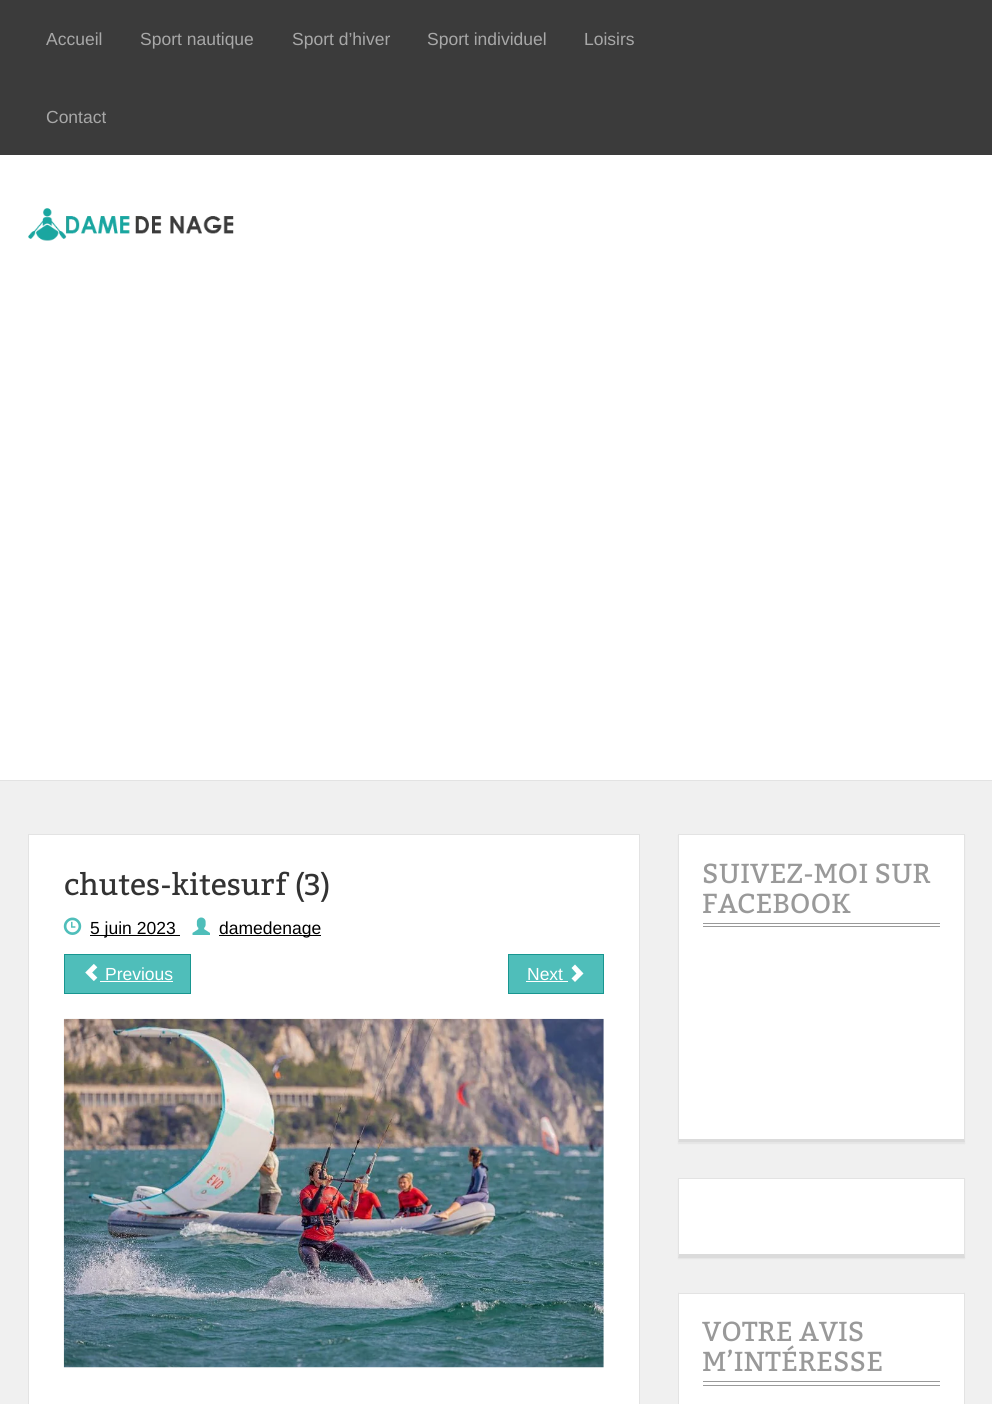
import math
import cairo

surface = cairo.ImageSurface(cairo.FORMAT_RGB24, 992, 1404)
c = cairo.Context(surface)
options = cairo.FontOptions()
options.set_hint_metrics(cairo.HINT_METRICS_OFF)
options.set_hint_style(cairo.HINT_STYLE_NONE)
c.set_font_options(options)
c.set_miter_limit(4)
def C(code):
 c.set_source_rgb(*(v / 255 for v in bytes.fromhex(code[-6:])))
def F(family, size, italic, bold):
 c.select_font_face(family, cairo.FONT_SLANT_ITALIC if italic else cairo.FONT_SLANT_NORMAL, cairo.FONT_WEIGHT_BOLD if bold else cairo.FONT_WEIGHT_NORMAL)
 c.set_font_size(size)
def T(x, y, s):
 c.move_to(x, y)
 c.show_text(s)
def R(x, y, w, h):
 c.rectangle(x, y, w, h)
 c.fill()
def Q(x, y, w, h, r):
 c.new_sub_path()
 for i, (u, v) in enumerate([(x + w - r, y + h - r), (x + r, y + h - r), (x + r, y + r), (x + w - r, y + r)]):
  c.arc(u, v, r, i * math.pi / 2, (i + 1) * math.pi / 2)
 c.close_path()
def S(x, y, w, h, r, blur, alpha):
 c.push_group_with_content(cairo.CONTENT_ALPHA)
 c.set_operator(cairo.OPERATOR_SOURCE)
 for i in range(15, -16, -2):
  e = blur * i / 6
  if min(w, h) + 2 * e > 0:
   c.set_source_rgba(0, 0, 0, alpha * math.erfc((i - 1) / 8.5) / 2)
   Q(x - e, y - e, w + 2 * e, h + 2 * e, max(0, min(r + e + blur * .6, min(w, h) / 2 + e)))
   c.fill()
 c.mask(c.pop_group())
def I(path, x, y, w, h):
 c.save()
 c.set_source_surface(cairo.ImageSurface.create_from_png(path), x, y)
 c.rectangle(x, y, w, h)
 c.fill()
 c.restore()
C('ffffff')
c.paint()
C('3b3b3b')
R(0,0,992,155)
F('Liberation Sans',17.5,0,0)
C('a8a8a8')
T(46,45,'Accueil')
T(140,45,'Sport nautique')
T(292,45,'Sport d’hiver')
T(427,45,'Sport individuel')
T(584,45,'Loisirs')
T(46,123,'Contact')
I('1.png',28,208,206,33)
C('f0f0f0')
R(0,781,992,623)
C('e3e3e3')
R(0,780,992,1)
C('ffffff')
R(29,835,610,569)
C('e3e3e3')
R(28,834,612,1)
c.new_path()
c.move_to(640,834)
c.line_to(640,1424)
c.line_to(639,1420)
c.line_to(639,835)
c.close_path()
c.fill()
c.new_path()
c.move_to(28,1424)
c.line_to(28,834)
c.line_to(29,835)
c.line_to(29,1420)
c.close_path()
c.fill()
F('Bitter',30,0,0)
C('333333')
T(64,895,'chutes-kitesurf (3)')
I('2.png',63,917,19,18)
C('000000')
R(90,935,90,1)
F('Liberation Sans',17.5,0,0)
T(90,934,'5 juin 2023')
I('3.png',192,917,18,18)
R(219,935,102,1)
T(219,934,'damedenage')
C('4fbeba')
c.rectangle(64.5,954.5,126,39)
c.fill_preserve()
C('189690')
c.set_line_width(1)
c.stroke()
I('4.png',85,964,13,17)
C('ffffff')
T(105,980,'Previous')
R(100,981,73,1)
C('4fbeba')
c.rectangle(508.5,954.5,95,39)
c.fill_preserve()
C('189690')
c.stroke()
C('ffffff')
T(527,980,'Next')
R(526,981,42,1)
c.new_path()
c.move_to(571.5,978.5)
c.line_to(576.5,973.5)
c.line_to(571.5,968)
c.line_to(575,964.5)
c.line_to(583.5,973.5)
c.line_to(575,982)
c.close_path()
c.fill()
I('5.png',63,1018,541,350)
C('000000')
S(678,835,287,309,0,.5,.05)
C('ffffff')
R(679,835,285,304)
C('e3e3e3')
R(678,834,287,1)
c.new_path()
c.move_to(965,834)
c.line_to(965,1142)
c.line_to(964,1139)
c.line_to(964,835)
c.close_path()
c.fill()
C('dbdbdb')
c.new_path()
c.move_to(965,1142)
c.line_to(678,1142)
c.line_to(679,1139)
c.line_to(964,1139)
c.close_path()
c.fill()
C('e3e3e3')
c.new_path()
c.move_to(678,1142)
c.line_to(678,834)
c.line_to(679,835)
c.line_to(679,1139)
c.close_path()
c.fill()
C('999999')
R(703,923,237,1)
R(703,926,237,1)
F('Bitter',27.5,0,0)
T(702,883,'SUIVEZ-MOI SUR')
T(702,913,'FACEBOOK')
C('000000')
S(678,1179,287,80,0,.5,.05)
C('ffffff')
R(679,1179,285,75)
C('e3e3e3')
R(678,1178,287,1)
c.new_path()
c.move_to(965,1178)
c.line_to(965,1258)
c.line_to(964,1254)
c.line_to(964,1179)
c.close_path()
c.fill()
C('dbdbdb')
c.new_path()
c.move_to(965,1258)
c.line_to(678,1258)
c.line_to(679,1254)
c.line_to(964,1254)
c.close_path()
c.fill()
C('e3e3e3')
c.new_path()
c.move_to(678,1258)
c.line_to(678,1178)
c.line_to(679,1179)
c.line_to(679,1254)
c.close_path()
c.fill()
C('ffffff')
R(679,1294,285,110)
C('e3e3e3')
R(678,1293,287,1)
c.new_path()
c.move_to(965,1292)
c.line_to(965,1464)
c.line_to(964,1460)
c.line_to(964,1294)
c.close_path()
c.fill()
c.new_path()
c.move_to(678,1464)
c.line_to(678,1292)
c.line_to(679,1294)
c.line_to(679,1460)
c.close_path()
c.fill()
C('999999')
R(703,1381,237,1)
R(703,1385,237,1)
T(702,1341,'VOTRE AVIS')
T(702,1371,'M’INTÉRESSE')
surface.write_to_png('o.png')
